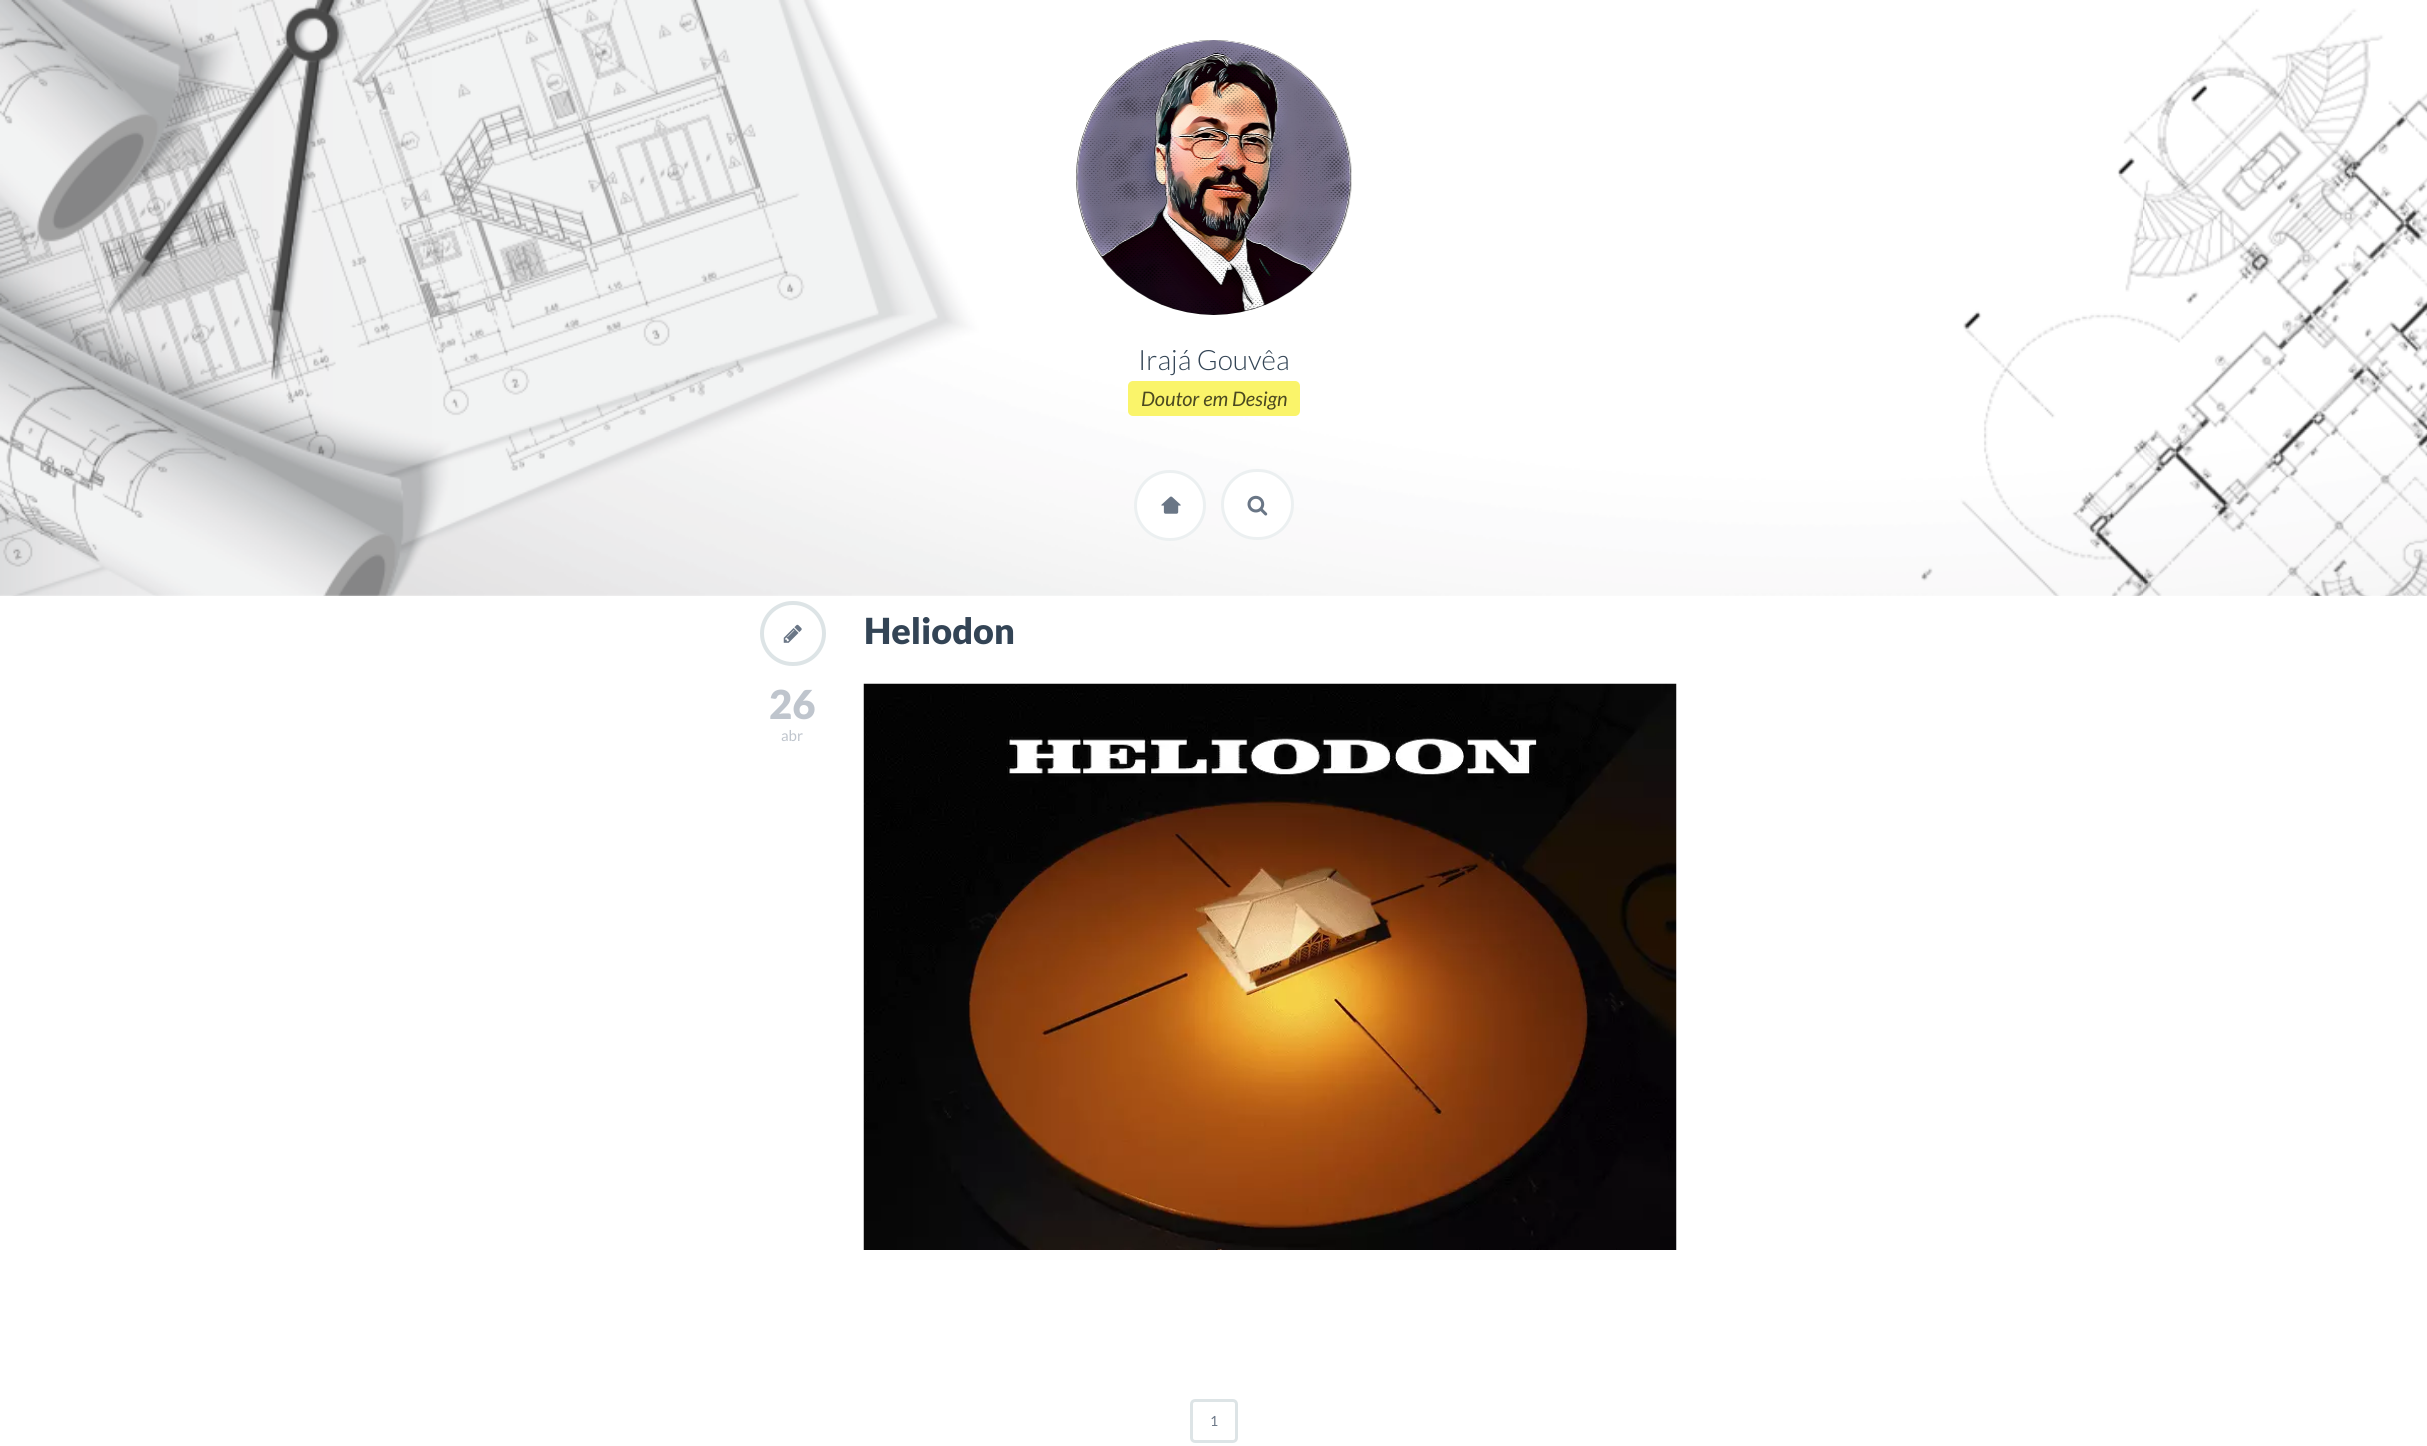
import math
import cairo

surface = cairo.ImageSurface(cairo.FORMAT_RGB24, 2427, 1446)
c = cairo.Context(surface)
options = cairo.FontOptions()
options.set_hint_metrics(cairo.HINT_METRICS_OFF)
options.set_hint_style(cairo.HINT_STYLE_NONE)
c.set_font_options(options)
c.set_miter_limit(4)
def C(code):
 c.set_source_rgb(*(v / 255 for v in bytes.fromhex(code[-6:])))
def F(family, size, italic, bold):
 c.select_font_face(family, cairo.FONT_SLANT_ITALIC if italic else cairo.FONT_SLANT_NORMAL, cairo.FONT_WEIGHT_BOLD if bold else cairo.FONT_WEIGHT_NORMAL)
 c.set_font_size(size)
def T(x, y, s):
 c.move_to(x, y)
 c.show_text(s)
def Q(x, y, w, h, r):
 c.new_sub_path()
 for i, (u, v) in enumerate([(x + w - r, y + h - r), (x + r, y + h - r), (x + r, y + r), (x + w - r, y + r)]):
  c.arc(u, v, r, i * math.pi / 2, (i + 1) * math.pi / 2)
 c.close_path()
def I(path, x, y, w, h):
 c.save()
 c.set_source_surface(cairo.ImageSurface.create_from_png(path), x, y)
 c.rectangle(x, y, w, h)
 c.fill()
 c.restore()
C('ffffff')
c.paint()
I('1.png',0,0,2427,596)
I('2.png',1076,40,276,275)
F('Lato Light',28,0,0)
C('334455')
T(1138,370,'Irajá Gouvêa')
C('faf46a')
Q(1128,381,172,35,5)
c.fill()
F('Lato',20,1,0)
C('4b4920')
T(1141,406,'Doutor em Design')
C('ffffff')
Q(1135.5,471.5,69,68,34)
c.fill_preserve()
C('ecf0f1')
c.set_line_width(3)
c.stroke()
I('3.png',1161,496,20,18)
C('ffffff')
Q(1222.5,470.5,70,68,34)
c.fill_preserve()
C('ecf0f1')
c.stroke()
I('4.png',1247,495,21,21)
F('Lato Black',36,0,0)
C('334455')
T(864,644,'Heliodon')
Q(762,603,62,61,30.5)
C('dde4e6')
c.set_line_width(4)
c.stroke()
I('5.png',783,624,19,19)
F('Lato Black',40,0,0)
C('bfc5cd')
T(769,719,'26')
F('Lato',15,0,0)
T(781,741,'abr')
I('6.png',863,683,814,567)
Q(1191.5,1400.5,45,41,3.5)
C('dde4e6')
c.set_line_width(3)
c.stroke()
F('Lato',14,0,0)
C('6a7686')
T(1210,1426,'1')
surface.write_to_png('o.png')
